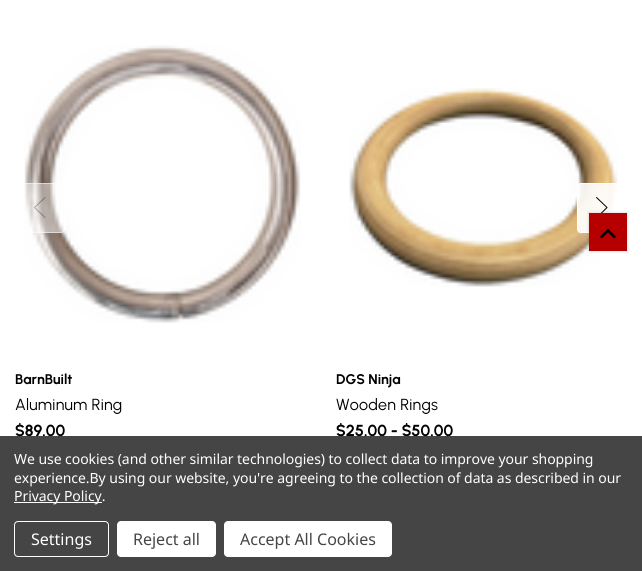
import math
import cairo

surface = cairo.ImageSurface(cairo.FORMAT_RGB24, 642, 571)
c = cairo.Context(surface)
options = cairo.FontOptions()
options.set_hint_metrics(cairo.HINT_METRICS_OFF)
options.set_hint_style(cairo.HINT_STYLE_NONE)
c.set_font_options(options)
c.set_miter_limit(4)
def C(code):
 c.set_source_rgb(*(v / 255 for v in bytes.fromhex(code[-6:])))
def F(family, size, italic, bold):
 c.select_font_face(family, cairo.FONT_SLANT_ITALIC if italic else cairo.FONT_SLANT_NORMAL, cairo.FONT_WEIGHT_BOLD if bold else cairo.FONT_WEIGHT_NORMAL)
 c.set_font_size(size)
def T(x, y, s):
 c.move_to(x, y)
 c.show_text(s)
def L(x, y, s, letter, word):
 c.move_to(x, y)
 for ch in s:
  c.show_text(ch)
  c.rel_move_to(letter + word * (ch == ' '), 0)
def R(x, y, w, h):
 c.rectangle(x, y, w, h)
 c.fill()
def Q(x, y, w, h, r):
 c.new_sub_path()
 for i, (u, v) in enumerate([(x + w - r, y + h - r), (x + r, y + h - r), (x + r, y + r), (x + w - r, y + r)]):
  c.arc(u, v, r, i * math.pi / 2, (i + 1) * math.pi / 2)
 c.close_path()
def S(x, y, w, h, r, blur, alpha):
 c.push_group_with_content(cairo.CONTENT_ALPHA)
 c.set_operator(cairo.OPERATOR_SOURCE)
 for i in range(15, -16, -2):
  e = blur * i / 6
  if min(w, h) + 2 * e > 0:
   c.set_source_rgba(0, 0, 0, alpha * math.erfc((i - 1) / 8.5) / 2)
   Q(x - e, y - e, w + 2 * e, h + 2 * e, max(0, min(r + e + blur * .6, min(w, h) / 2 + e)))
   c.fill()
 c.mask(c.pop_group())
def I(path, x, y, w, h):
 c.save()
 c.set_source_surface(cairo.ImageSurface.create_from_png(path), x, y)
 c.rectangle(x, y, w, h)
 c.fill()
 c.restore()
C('ffffff')
c.paint()
I('3.png',349,88,269,199)
c.set_source_rgba(1,1,1,0.9)
Q(577.5,183.5,49,49,3.5)
c.fill_preserve()
C('ffffff')
c.set_line_width(1)
c.stroke()
c.new_path()
c.move_to(596.5,197.5)
c.line_to(607,207.5)
c.line_to(597,217.5)
C('000000')
c.set_line_cap(cairo.LINE_CAP_ROUND)
c.set_line_join(cairo.LINE_JOIN_ROUND)
c.stroke()
C('000000')
S(588,212,40,40,0,1,.1)
C('b60000')
R(589,213,38,38)
I('1.png',600,228,16,11)
I('2.png',24,45,277,278)
c.set_source_rgba(1,1,1,0.45)
Q(15,183,50,50,4)
c.fill()
Q(15.5,183.5,49,49,3.5)
c.set_source_rgba(1,1,1,0.5)
c.set_line_cap(cairo.LINE_CAP_BUTT)
c.set_line_join(cairo.LINE_JOIN_MITER)
c.stroke()
c.new_path()
c.move_to(45,197.5)
c.line_to(34.5,207.5)
c.line_to(45,217.5)
c.set_source_rgba(0,0,0,0.3)
c.set_line_cap(cairo.LINE_CAP_ROUND)
c.set_line_join(cairo.LINE_JOIN_ROUND)
c.stroke()
F('Urbanist',14,0,1)
C('000000')
T(15,384,'BarnBuilt')
F('Urbanist',16,0,0)
L(15,410,'Aluminum Ring',.25,0)
F('Urbanist',16,0,1)
T(15,436,'$89.00')
F('Urbanist',14,0,1)
T(336,384,'DGS Ninja')
F('Urbanist',16,0,0)
L(336,410,'Wooden Rings',.25,0)
F('Urbanist',16,0,1)
T(336,436,'$25.00 - $50.00')
C('454545')
R(0,436,642,135)
F('Noto Sans',14,0,0)
C('ffffff')
L(14,464,'We use cookies (and other similar technologies) to collect data to improve your shopping',-.05,0)
L(14,483,'experience.By using our website, you\'re agreeing to the collection of data as described in our',-.05,0)
R(14,502,88,1)
L(14,501,'Privacy Policy.',-.05,0)
Q(14.5,521.5,94,35,3.5)
c.set_line_cap(cairo.LINE_CAP_BUTT)
c.set_line_join(cairo.LINE_JOIN_MITER)
c.stroke()
F('Noto Sans',16,0,0)
T(31,545,'Settings')
Q(117,521,99,36,4)
c.fill()
C('454545')
T(133,545,'Reject all')
C('ffffff')
Q(224,521,168,36,4)
c.fill()
C('454545')
T(240,545,'Accept All Cookies')
surface.write_to_png('o.png')
